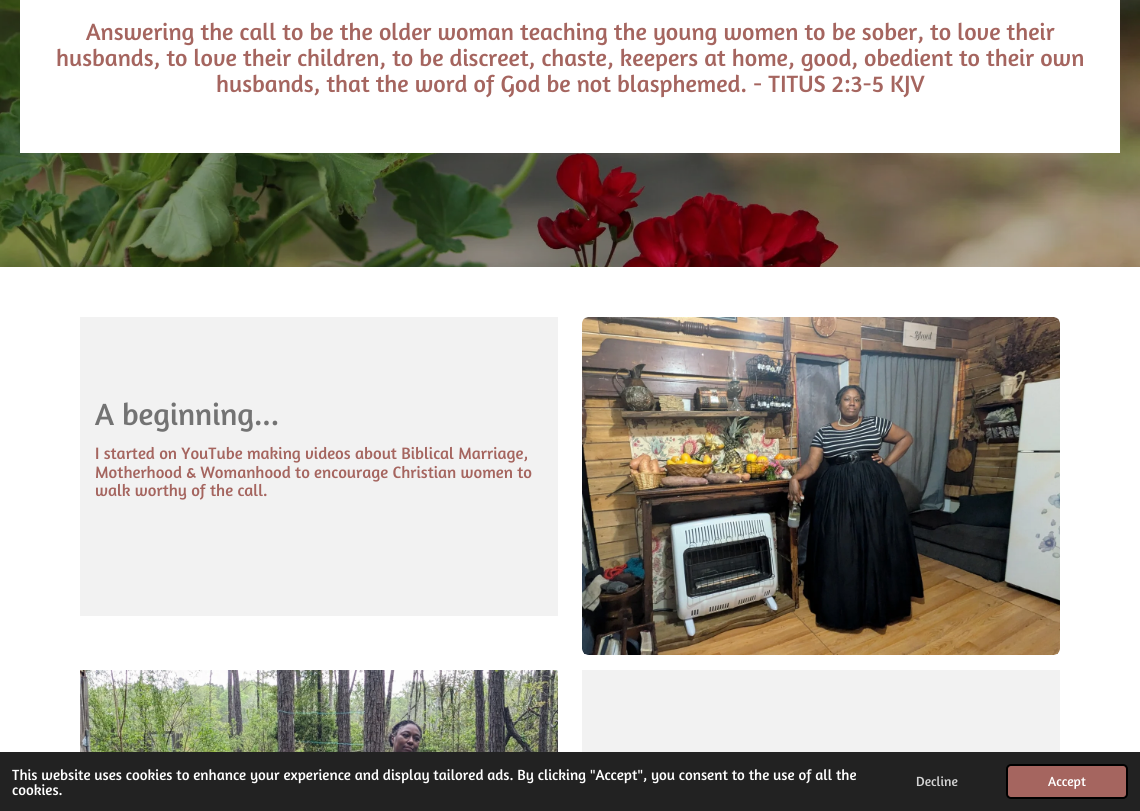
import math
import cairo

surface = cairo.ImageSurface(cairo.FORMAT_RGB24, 1140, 811)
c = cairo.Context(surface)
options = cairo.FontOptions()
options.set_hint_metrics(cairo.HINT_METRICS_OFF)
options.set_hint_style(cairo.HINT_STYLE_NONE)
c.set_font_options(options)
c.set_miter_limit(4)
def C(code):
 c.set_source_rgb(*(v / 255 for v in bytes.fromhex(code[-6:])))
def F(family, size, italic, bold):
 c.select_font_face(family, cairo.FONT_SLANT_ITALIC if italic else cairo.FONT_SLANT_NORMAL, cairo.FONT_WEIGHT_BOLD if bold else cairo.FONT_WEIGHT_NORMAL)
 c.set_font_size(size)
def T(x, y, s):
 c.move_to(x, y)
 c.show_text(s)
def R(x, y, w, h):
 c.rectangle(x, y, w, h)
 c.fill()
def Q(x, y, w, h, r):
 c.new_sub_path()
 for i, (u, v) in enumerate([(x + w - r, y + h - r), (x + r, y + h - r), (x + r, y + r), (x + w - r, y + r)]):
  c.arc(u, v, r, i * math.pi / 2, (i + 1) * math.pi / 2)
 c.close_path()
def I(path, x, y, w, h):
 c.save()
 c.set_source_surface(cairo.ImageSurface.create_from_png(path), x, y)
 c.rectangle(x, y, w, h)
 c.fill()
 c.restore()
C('ffffff')
c.paint()
I('1.png',0,0,1140,267)
C('ffffff')
R(20,0,1100,153)
F('Amaranth',24,0,0)
C('a5655f')
T(86,40,'Answering the call to be the older woman teaching the young women to be sober, to love their')
T(56,66,'husbands, to love their children, to be discreet, chaste, keepers at home, good, obedient to their own')
T(216,92,'husbands, that the word of God be not blasphemed. - TITUS 2:3-5 KJV')
C('f2f2f2')
R(80,317,478,299)
F('Amaranth',31.25,0,0)
C('737373')
T(95,425,'A beginning...')
F('Amaranth',16.8,0,0)
C('a5655f')
T(95,459,'I started on YouTube making videos about Biblical Marriage,')
T(95,478,'Motherhood & Womanhood to encourage Christian women to')
T(95,496,'walk worthy of the call.')
I('2.png',582,317,478,338)
I('3.png',80,670,478,82)
C('f2f2f2')
R(582,670,478,82)
C('222222')
R(0,752,1140,59)
F('Amaranth',15,0,0)
C('ffffff')
T(12,780,'This website uses cookies to enhance your experience and display tailored ads. By clicking "Accept", you consent to the use of all the')
T(12,795,'cookies.')
F('Amaranth',13.5,0,0)
C('d3d3d3')
T(916,786,'Decline')
C('a5655f')
Q(1007,765,120,33,4)
c.fill_preserve()
C('000000')
c.stroke()
C('ffffff')
T(1048,786,'Accept')
surface.write_to_png('o.png')
